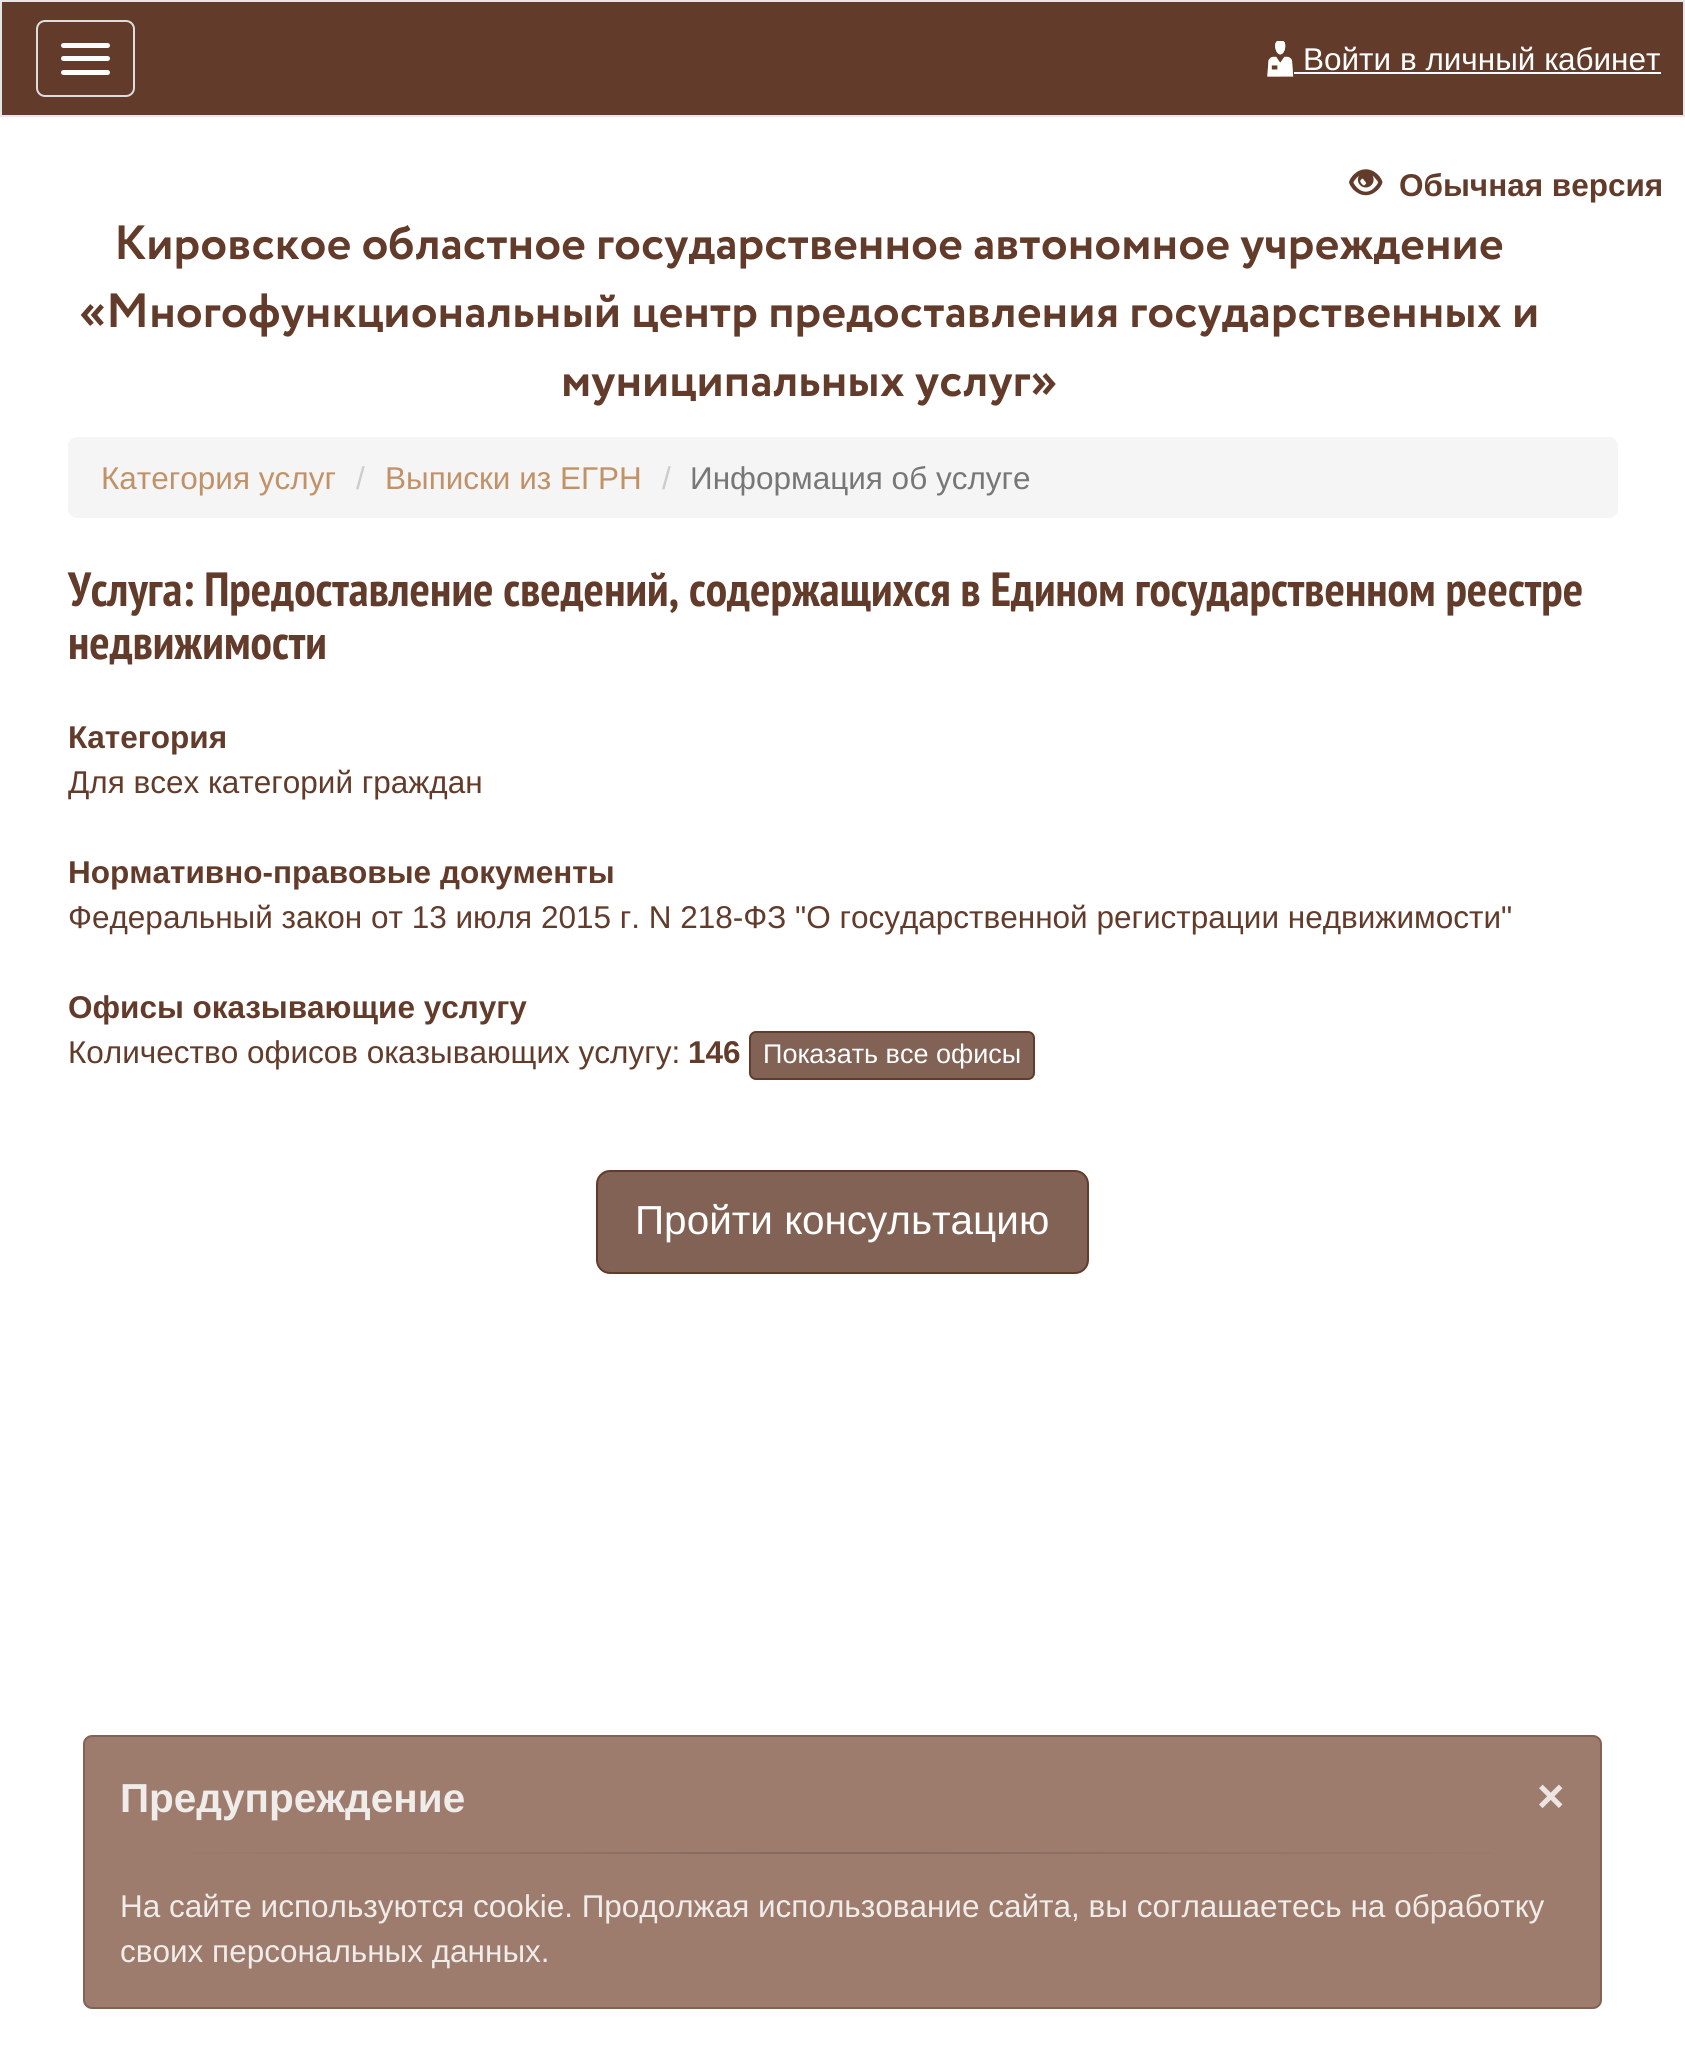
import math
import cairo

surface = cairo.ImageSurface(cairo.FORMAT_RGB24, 1685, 2053)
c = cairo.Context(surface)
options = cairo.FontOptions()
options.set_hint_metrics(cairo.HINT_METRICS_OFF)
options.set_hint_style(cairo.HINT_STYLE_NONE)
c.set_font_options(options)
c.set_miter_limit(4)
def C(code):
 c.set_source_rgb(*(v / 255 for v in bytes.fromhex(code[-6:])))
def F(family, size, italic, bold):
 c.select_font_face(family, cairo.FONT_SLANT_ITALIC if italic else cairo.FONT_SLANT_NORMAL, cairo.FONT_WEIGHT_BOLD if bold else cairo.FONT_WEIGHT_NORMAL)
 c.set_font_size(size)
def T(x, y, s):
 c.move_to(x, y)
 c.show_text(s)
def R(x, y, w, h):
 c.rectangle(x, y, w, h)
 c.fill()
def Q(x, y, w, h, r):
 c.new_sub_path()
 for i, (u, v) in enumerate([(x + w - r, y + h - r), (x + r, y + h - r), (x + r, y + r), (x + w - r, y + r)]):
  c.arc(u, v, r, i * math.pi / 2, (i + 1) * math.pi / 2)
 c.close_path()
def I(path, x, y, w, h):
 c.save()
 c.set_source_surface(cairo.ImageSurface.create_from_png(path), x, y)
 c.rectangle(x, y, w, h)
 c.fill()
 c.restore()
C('ffffff')
c.paint()
C('623b2a')
c.rectangle(1,1,1683,115)
c.fill_preserve()
C('e7e7e7')
c.stroke()
Q(37,21,97,75,8)
C('dddddd')
c.stroke()
C('ffffff')
Q(61,43,49,5,2.5)
c.fill()
Q(61,56,49,5,2.5)
c.fill()
Q(61,70,49,5,2.5)
c.fill()
I('1.png',1267,41,27,36)
F('Liberation Sans',31.5,0,0)
T(1303,70,'Войти в личный кабинет')
R(1294,72,367,2)
I('2.png',1349,169,34,27)
F('Liberation Sans',31.5,0,1)
C('623b2a')
T(1399,196,'Обычная версия')
F('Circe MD',48,0,1)
T(114,259,'Кировское областное государственное автономное учреждение')
T(79,327,'«Многофункциональный центр предоставления государственных и')
T(561,396,'муниципальных услуг»')
C('f5f5f5')
Q(68,437,1550,81,9)
c.fill()
F('Liberation Sans',31.5,0,0)
C('c19267')
T(101,489,'Категория услуг')
C('cccccc')
T(356,489,'/')
C('c19267')
T(385,489,'Выписки из ЕГРН')
C('cccccc')
T(662,489,'/')
C('777777')
T(690,489,'Информация об услуге')
F('PT Sans Narrow',48,0,1)
C('623b2a')
T(68,606,'Услуга: Предоставление сведений, содержащихся в Едином государственном реестре')
T(68,659,'недвижимости')
F('Liberation Sans',31.5,0,1)
T(68,748,'Категория')
F('Liberation Sans',31.5,0,0)
T(68,793,'Для всех категорий граждан')
F('Liberation Sans',31.5,0,1)
T(68,883,'Нормативно-правовые документы')
F('Liberation Sans',31.5,0,0)
T(68,928,'Федеральный закон от 13 июля 2015 г. N 218-ФЗ "О государственной регистрации недвижимости"')
F('Liberation Sans',31.5,0,1)
T(68,1018,'Офисы оказывающие услугу')
F('Liberation Sans',31.5,0,0)
T(68,1063,'Количество офисов оказывающих услугу:')
F('Liberation Sans',31.5,0,1)
T(688,1063,'146')
C('816255')
Q(750,1032,284,47,6)
c.fill_preserve()
C('623b2a')
c.stroke()
F('Liberation Sans',27,0,0)
C('ffffff')
T(763,1063,'Показать все офисы')
C('816255')
Q(597,1171,491,102,13)
c.fill_preserve()
C('623b2a')
c.stroke()
F('Liberation Sans',40.5,0,0)
C('ffffff')
T(635,1234,'Пройти консультацию')
C('9e7c6d')
Q(84,1736,1517,272,8)
c.fill_preserve()
C('816255')
c.stroke()
F('Liberation Sans',40.5,0,1)
C('f0ecea')
T(120,1812,'Предупреждение')
F('Liberation Sans',47,0,1)
C('ece5e2')
T(1537,1812,'×')
gradient = cairo.LinearGradient(119,1853,1566,1853)
gradient.add_color_stop_rgba(0,0.62,0.486,0.427,1)
gradient.add_color_stop_rgba(.5,0.525,0.412,0.365,1)
gradient.add_color_stop_rgba(1,0.62,0.486,0.427,1)
c.set_source(gradient)
R(194,1852,1297,2)
F('Liberation Sans',31.5,0,0)
C('f0ecea')
T(120,1917,'На сайте используются cookie. Продолжая использование сайта, вы соглашаетесь на обработку')
T(120,1962,'своих персональных данных.')
surface.write_to_png('o.png')
